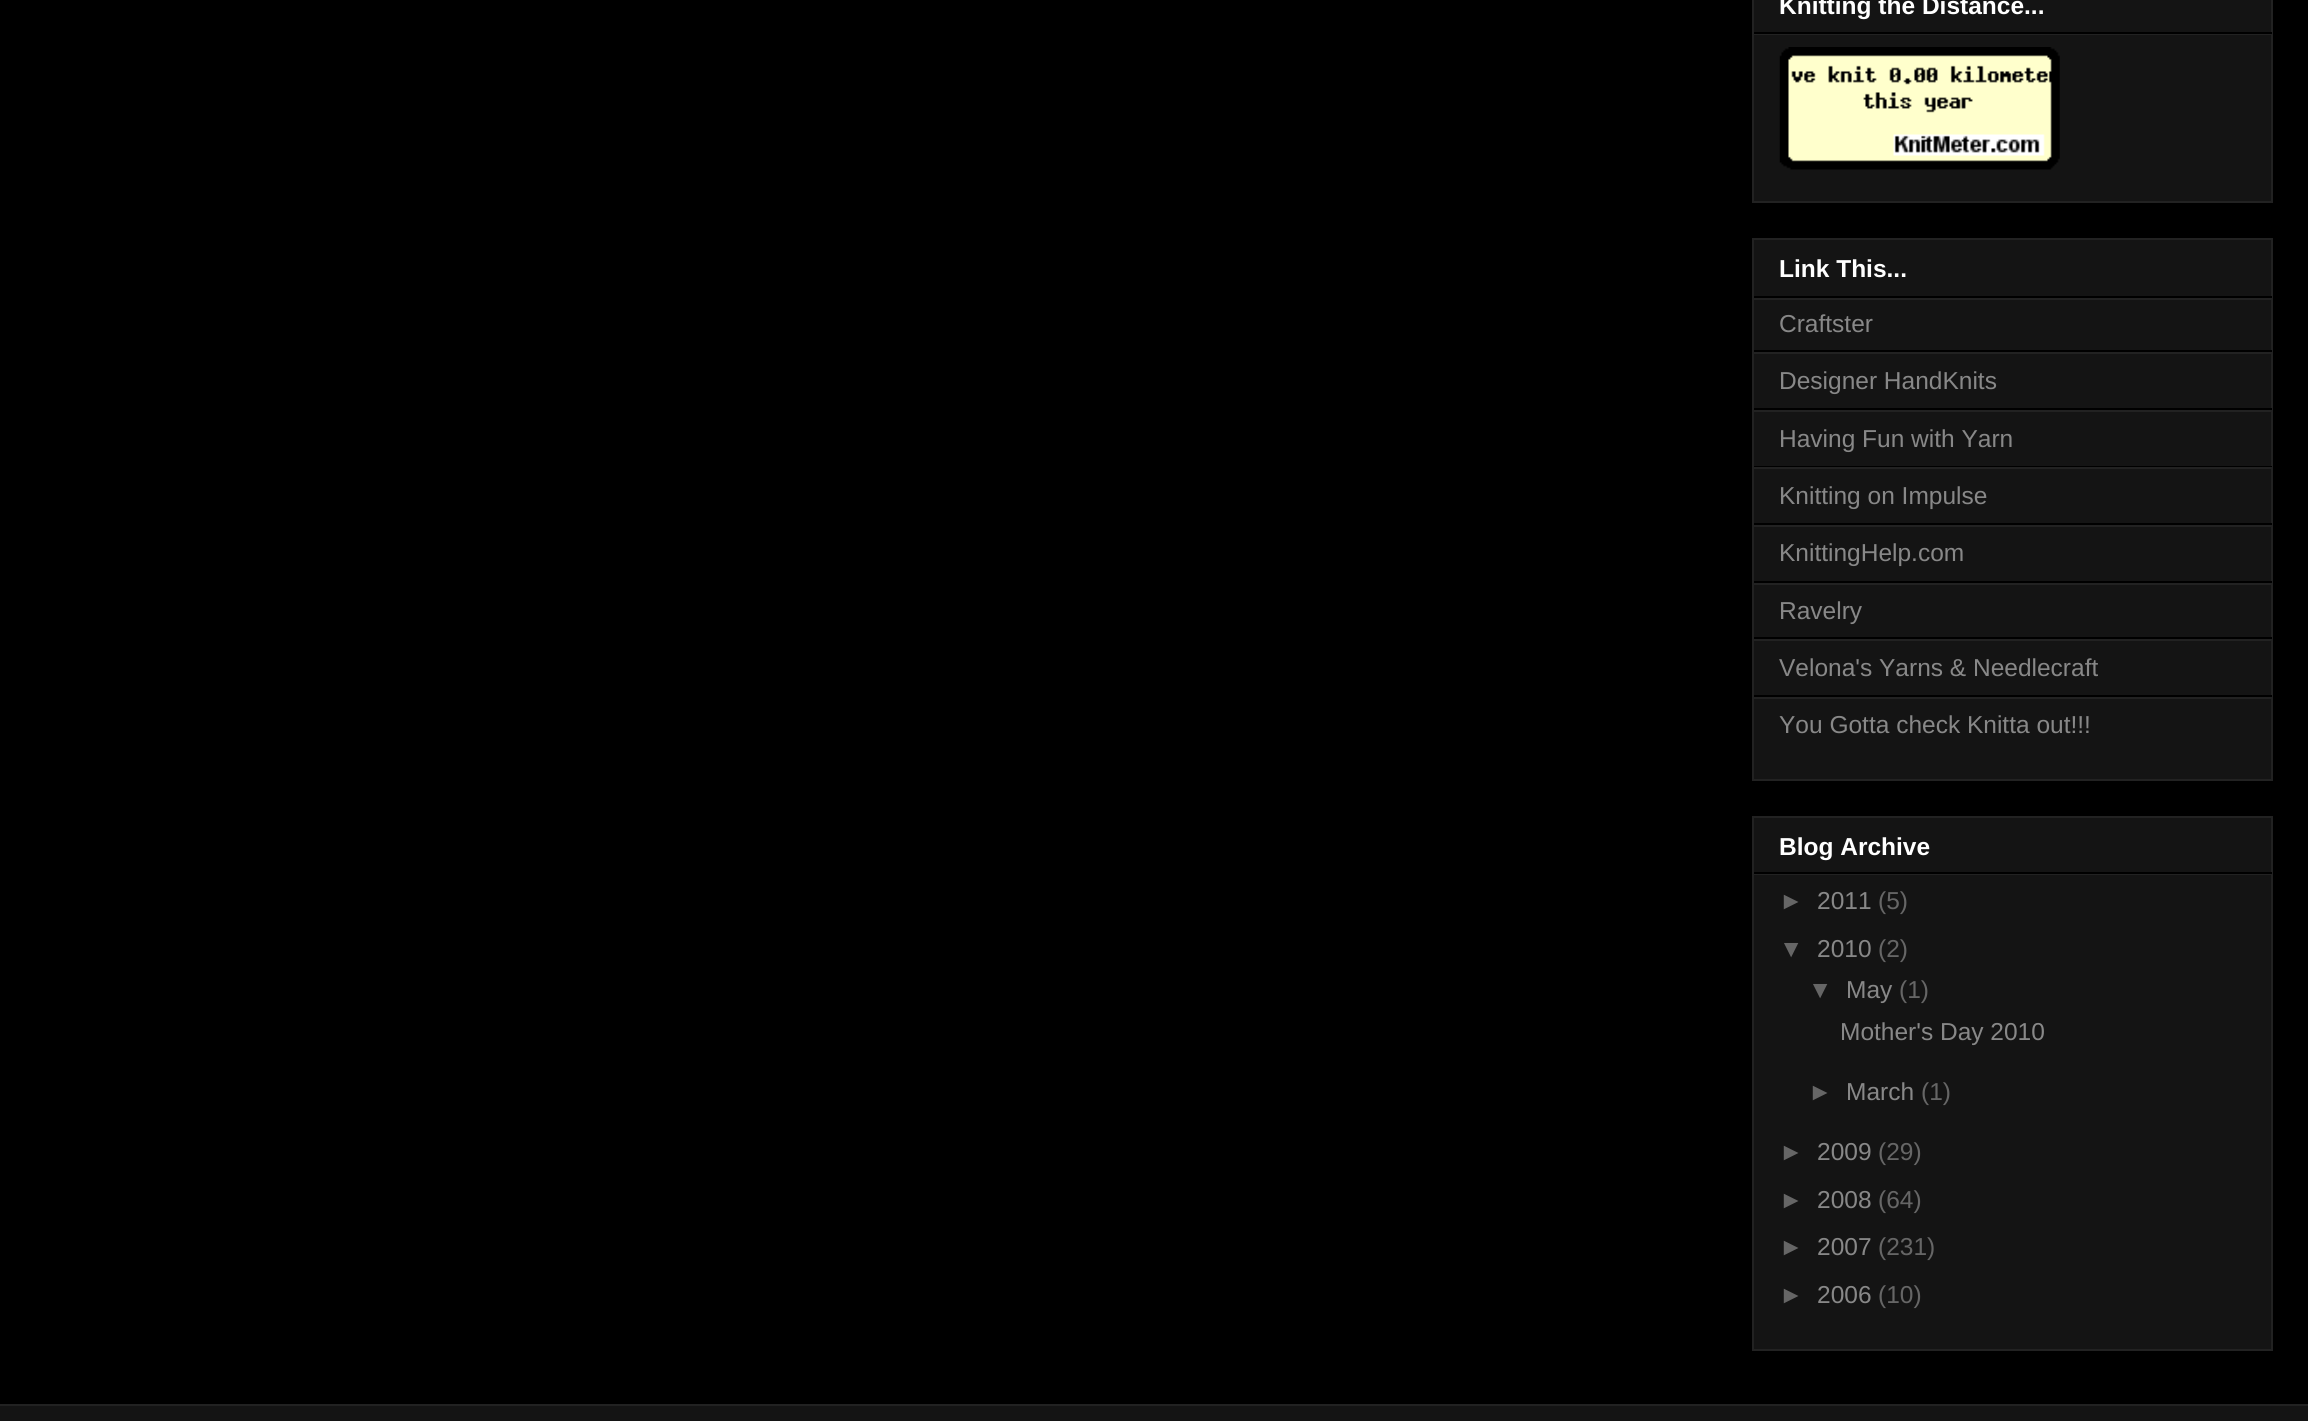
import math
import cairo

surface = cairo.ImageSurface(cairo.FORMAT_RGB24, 2308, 1421)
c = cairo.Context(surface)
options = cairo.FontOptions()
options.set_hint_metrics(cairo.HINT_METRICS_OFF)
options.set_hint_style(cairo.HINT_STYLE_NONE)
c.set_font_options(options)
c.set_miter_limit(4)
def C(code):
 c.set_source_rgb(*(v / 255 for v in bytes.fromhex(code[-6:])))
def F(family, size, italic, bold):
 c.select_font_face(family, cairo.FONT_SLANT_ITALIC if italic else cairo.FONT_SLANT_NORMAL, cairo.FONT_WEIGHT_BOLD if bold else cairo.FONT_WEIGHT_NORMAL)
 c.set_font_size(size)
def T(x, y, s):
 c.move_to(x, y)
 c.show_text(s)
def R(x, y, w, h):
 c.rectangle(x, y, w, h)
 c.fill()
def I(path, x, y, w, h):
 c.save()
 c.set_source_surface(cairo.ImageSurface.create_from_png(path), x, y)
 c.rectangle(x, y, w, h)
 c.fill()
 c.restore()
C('000000')
c.paint()
C('141414')
c.rectangle(1753,-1,519,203)
c.fill_preserve()
C('222222')
c.stroke()
C('000000')
R(1754,32,518,2)
F('Liberation Sans',24.5,0,1)
C('ffffff')
T(1779,14,'Knitting the Distance...')
C('222222')
R(1754,34,518,1)
I('1.png',1779,47,281,123)
C('141414')
c.rectangle(1753,239,519,541)
c.fill_preserve()
C('222222')
c.stroke()
C('000000')
R(1754,296,518,2)
C('ffffff')
T(1779,277,'Link This...')
C('222222')
R(1754,298,518,2)
C('000000')
R(1754,350,518,2)
F('Liberation Sans',24.5,0,0)
C('888888')
T(1779,332,'Craftster')
C('222222')
R(1754,352,518,2)
C('000000')
R(1754,408,518,2)
C('888888')
T(1779,389,'Designer HandKnits')
C('222222')
R(1754,410,518,2)
C('000000')
R(1754,466,518,1)
C('888888')
T(1779,447,'Having Fun with Yarn')
C('222222')
R(1754,467,518,2)
C('000000')
R(1754,523,518,2)
C('888888')
T(1779,504,'Knitting on Impulse')
C('222222')
R(1754,525,518,2)
C('000000')
R(1754,581,518,2)
C('888888')
T(1779,561,'KnittingHelp.com')
C('222222')
R(1754,583,518,2)
C('000000')
R(1754,637,518,2)
C('888888')
T(1779,619,'Ravelry')
C('222222')
R(1754,639,518,2)
C('000000')
R(1754,695,518,2)
C('888888')
T(1779,676,'Velona\'s Yarns & Needlecraft')
C('222222')
R(1754,697,518,2)
C('888888')
T(1779,733,'You Gotta check Knitta out!!!')
C('141414')
c.rectangle(1753,817,519,533)
c.fill_preserve()
C('222222')
c.stroke()
C('000000')
R(1754,872,518,2)
F('Liberation Sans',24.5,0,1)
C('ffffff')
T(1779,855,'Blog Archive')
C('222222')
R(1754,874,518,1)
F('Liberation Sans',24.5,0,0)
C('666666')
T(1779,909,'►')
C('888888')
T(1817,909,'2011')
C('666666')
T(1878,909,'(5)')
T(1779,957,'▼')
C('888888')
T(1817,957,'2010')
C('666666')
T(1878,957,'(2)')
T(1808,998,'▼')
C('888888')
T(1846,998,'May')
C('666666')
T(1899,998,'(1)')
C('888888')
T(1840,1040,'Mother\'s Day 2010')
C('666666')
T(1808,1100,'►')
C('888888')
T(1846,1100,'March')
C('666666')
T(1921,1100,'(1)')
T(1779,1160,'►')
C('888888')
T(1817,1160,'2009')
C('666666')
T(1878,1160,'(29)')
T(1779,1208,'►')
C('888888')
T(1817,1208,'2008')
C('666666')
T(1878,1208,'(64)')
T(1779,1255,'►')
C('888888')
T(1817,1255,'2007')
C('666666')
T(1878,1255,'(231)')
T(1779,1303,'►')
C('888888')
T(1817,1303,'2006')
C('666666')
T(1878,1303,'(10)')
C('141414')
R(0,1406,2308,15)
C('222222')
R(0,1404,2308,2)
surface.write_to_png('o.png')
